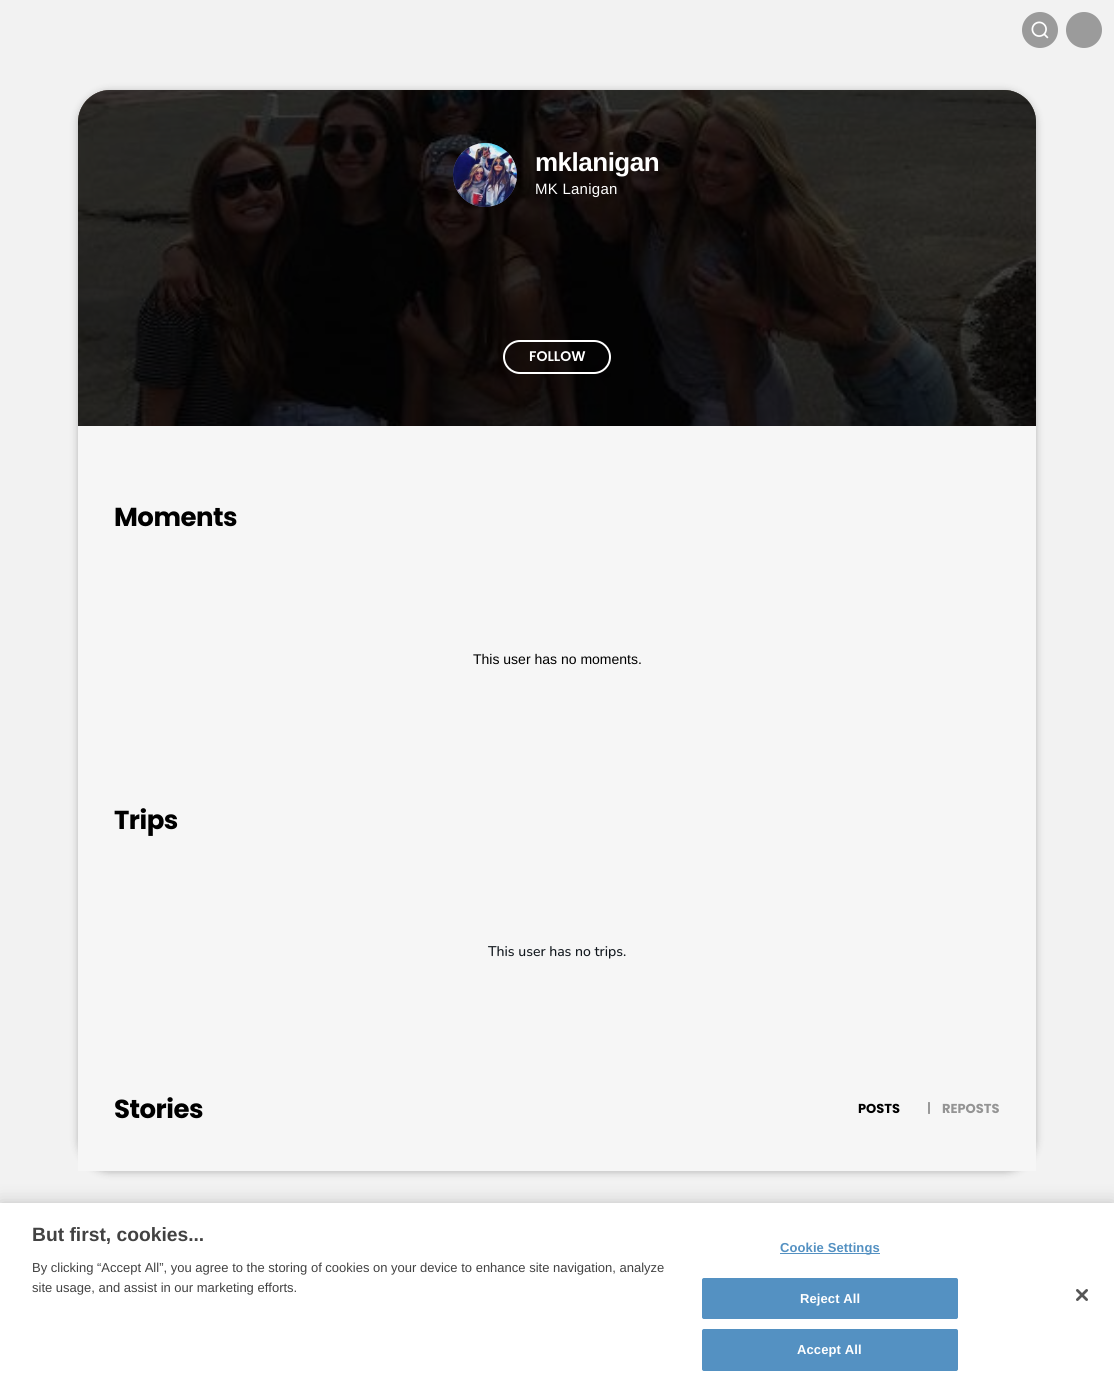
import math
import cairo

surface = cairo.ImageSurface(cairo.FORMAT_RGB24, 1114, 1391)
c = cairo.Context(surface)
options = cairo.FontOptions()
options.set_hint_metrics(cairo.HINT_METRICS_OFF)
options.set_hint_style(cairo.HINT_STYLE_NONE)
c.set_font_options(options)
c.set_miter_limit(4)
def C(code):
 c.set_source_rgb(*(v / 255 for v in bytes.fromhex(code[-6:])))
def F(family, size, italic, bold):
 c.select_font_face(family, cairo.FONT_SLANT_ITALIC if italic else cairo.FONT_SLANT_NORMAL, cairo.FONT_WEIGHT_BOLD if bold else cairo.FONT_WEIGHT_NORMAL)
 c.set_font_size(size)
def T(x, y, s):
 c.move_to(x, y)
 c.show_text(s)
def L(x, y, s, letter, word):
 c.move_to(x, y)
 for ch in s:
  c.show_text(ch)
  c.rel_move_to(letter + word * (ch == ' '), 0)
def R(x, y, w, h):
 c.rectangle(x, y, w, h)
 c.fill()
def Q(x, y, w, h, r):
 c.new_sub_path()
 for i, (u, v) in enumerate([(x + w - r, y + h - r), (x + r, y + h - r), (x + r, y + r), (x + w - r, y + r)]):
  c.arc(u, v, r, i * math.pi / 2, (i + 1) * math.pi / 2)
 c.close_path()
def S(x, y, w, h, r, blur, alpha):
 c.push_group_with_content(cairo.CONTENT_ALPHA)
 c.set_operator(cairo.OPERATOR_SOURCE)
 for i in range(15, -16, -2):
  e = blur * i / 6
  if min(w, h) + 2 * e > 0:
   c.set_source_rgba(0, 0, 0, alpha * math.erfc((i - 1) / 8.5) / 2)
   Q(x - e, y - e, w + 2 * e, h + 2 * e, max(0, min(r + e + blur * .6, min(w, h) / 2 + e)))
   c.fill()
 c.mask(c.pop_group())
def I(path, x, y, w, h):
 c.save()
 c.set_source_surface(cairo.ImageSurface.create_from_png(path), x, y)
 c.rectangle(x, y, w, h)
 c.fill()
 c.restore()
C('f2f2f2')
c.paint()
C('9b9b9b')
c.arc(1040,30,18,0,2 * math.pi)
c.fill()
I('1.png',1031,21,18,18)
c.arc(1084,30,18,0,2 * math.pi)
c.fill()
C('000000')
S(78,91,958,1081,32,4,.25)
C('f6f6f6')
c.new_path()
c.move_to(110,90)
c.line_to(1004,90)
c.curve_to(1021.5,90,1036,104.5,1036,122)
c.line_to(1036,1171)
c.line_to(78,1171)
c.line_to(78,122)
c.curve_to(78,104.5,92.5,90,110,90)
c.close_path()
c.fill()
C('4c433f')
c.new_path()
c.move_to(110,90)
c.line_to(1004,90)
c.curve_to(1021.5,90,1036,104.5,1036,122)
c.line_to(1036,426)
c.line_to(78,426)
c.line_to(78,122)
c.curve_to(78,104.5,92.5,90,110,90)
c.close_path()
c.fill()
I('2.png',78,90,958,336)
c.set_source_rgba(0,0,0,0.7)
c.new_path()
c.move_to(110,90)
c.line_to(1004,90)
c.curve_to(1021.5,90,1036,104.5,1036,122)
c.line_to(1036,426)
c.line_to(78,426)
c.line_to(78,122)
c.curve_to(78,104.5,92.5,90,110,90)
c.close_path()
c.fill()
C('5f617f')
c.arc(485,175,32,0,2 * math.pi)
c.fill()
I('3.png',453,143,64,64)
F('Liberation Sans',26,0,1)
C('ffffff')
L(535,171,'mklanigan',-.5,0)
F('Liberation Sans',15,0,0)
L(535,194,'MK Lanigan',.25,0)
Q(504,341,106,32,16)
c.stroke()
F('Poppins SemiBold',14,0,0)
T(529,361,'FOLLOW')
F('Poppins',26,0,1)
C('000000')
L(114,526,'Moments',-.5,0)
F('Liberation Sans',14,0,0)
T(473,664,'This user has no moments.')
F('Poppins',26,0,1)
L(114,829,'Trips',-.5,0)
F('Nunito Medium',14,0,0)
C('12181e')
T(488,956,'This user has no trips.')
F('Poppins',26,0,1)
C('000000')
L(114,1118,'Stories',-.5,0)
F('Poppins',13,0,1)
T(858,1113,'POSTS')
C('999999')
Q(928,1102,2,12,.5)
c.fill()
C('949494')
T(942,1113,'REPOSTS')
C('000000')
S(0,1203,1114,188,0,9,.2)
C('ffffff')
R(0,1203,1114,188)
F('Liberation Sans',19.25,0,1)
C('424242')
T(32,1241,'But first, cookies...')
F('Liberation Sans',13,0,0)
T(32,1272,'By clicking “Accept All”, you agree to the storing of cookies on your device to enhance site navigation, analyze')
T(32,1292,'site usage, and assist in our marketing efforts.')
C('5491c2')
R(780,1253,100,1)
F('Liberation Sans',13,0,1)
L(780,1252,'Cookie Settings',.1,0)
Q(702.5,1278.5,255,40,1.5)
c.fill_preserve()
c.set_line_width(1)
c.stroke()
C('ffffff')
L(800,1303,'Reject All',.1,0)
C('5491c2')
Q(702.5,1329.5,255,41,1.5)
c.fill_preserve()
c.stroke()
C('ffffff')
L(797,1354,'Accept All',.1,0)
I('4.png',1076,1289,12,12)
surface.write_to_png('o.png')
